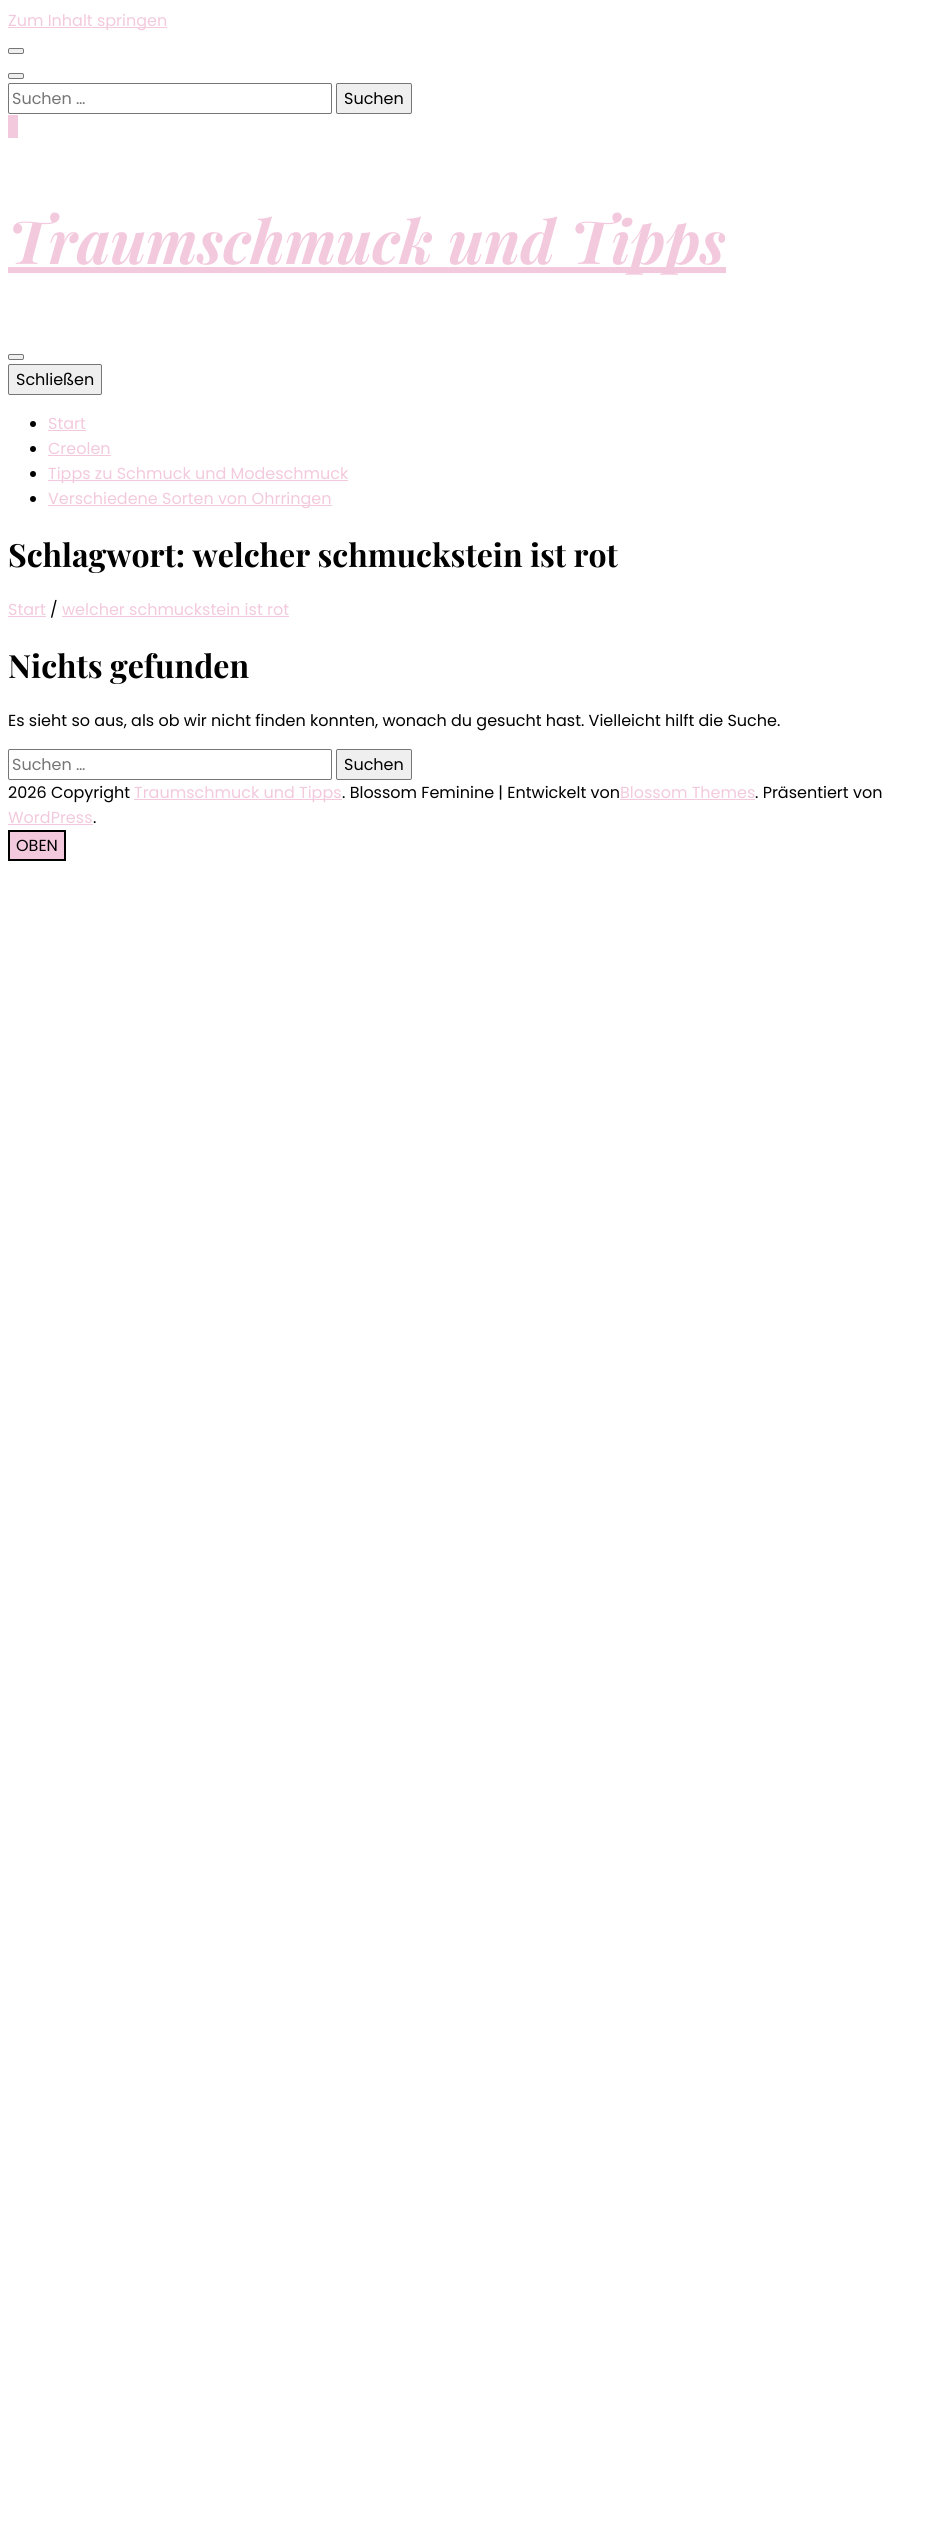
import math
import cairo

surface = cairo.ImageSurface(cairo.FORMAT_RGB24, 930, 2541)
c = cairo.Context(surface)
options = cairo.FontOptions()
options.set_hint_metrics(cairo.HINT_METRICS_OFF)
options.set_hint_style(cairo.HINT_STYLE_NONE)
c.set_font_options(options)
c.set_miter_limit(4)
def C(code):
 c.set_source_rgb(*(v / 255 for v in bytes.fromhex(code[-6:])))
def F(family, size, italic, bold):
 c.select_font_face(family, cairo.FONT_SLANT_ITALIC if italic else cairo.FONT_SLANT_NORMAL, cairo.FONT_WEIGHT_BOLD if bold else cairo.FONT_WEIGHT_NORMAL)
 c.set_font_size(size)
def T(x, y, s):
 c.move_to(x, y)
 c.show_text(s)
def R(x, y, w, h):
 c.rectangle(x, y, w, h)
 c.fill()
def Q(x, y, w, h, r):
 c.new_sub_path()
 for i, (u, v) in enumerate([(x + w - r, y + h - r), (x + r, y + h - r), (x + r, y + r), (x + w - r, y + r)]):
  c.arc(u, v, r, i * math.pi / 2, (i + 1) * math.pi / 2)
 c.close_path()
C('ffffff')
c.paint()
C('f3c9dd')
R(8,27,159,1)
F('Poppins',16,0,0)
T(8,26,'Zum Inhalt springen')
C('efefef')
Q(8.5,48.5,15,5,1.5)
c.fill_preserve()
C('767676')
c.set_line_width(1)
c.stroke()
C('efefef')
Q(8.5,73.5,15,5,1.5)
c.fill_preserve()
C('767676')
c.stroke()
Q(8.5,83.5,323,30,1.5)
c.stroke()
C('757575')
T(12,104,'Suchen …')
C('efefef')
Q(336.5,83.5,75,30,1.5)
c.fill_preserve()
C('767676')
c.stroke()
C('000000')
T(344,104,'Suchen')
C('f3c9dd')
R(8,115,10,23)
R(8,267,718,6)
F('Playfair Display',60,1,1)
T(8,264,'Traumschmuck und Tipps')
C('efefef')
Q(8.5,354.5,15,5,1.5)
c.fill_preserve()
C('767676')
c.stroke()
C('efefef')
Q(8.5,364.5,93,30,1.5)
c.fill_preserve()
C('767676')
c.stroke()
F('Poppins',16,0,0)
C('000000')
T(16,385,'Schließen')
c.new_path()
c.arc(33,424,3,0,2 * math.pi)
c.fill()
C('f3c9dd')
T(48,429,'Start')
R(48,430,38,1)
C('000000')
c.new_path()
c.arc(33,449,3,0,2 * math.pi)
c.fill()
C('f3c9dd')
T(48,454,'Creolen')
R(48,455,63,1)
C('000000')
c.new_path()
c.arc(33,474,3,0,2 * math.pi)
c.fill()
C('f3c9dd')
R(48,480,300,1)
T(48,479,'Tipps zu Schmuck und Modeschmuck')
C('000000')
c.new_path()
c.arc(33,499,3,0,2 * math.pi)
c.fill()
C('f3c9dd')
R(48,505,284,1)
T(48,504,'Verschiedene Sorten von Ohrringen')
F('Playfair Display',32,0,1)
C('000000')
T(8,567,'Schlagwort: welcher schmuckstein ist rot')
F('Poppins',16,0,0)
C('f3c9dd')
T(8,615,'Start')
R(8,616,38,1)
C('000000')
T(50,615,'/')
C('f3c9dd')
T(62,615,'welcher schmuckstein ist rot')
R(62,616,227,1)
F('Playfair Display',32,0,1)
C('000000')
T(8,678,'Nichts gefunden')
F('Poppins',16,0,0)
T(8,726,'Es sieht so aus, als ob wir nicht finden konnten, wonach du gesucht hast. Vielleicht hilft die Suche.')
Q(8.5,749.5,323,30,1.5)
C('767676')
c.stroke()
C('757575')
T(12,770,'Suchen …')
C('efefef')
Q(336.5,749.5,75,30,1.5)
c.fill_preserve()
C('767676')
c.stroke()
C('000000')
T(344,770,'Suchen')
T(8,798,'2026 Copyright')
C('f3c9dd')
R(134,799,208,1)
T(134,798,'Traumschmuck und Tipps')
C('000000')
T(342,798,'. Blossom Feminine | Entwickelt von')
C('f3c9dd')
T(620,798,'Blossom Themes')
R(620,799,135,1)
C('000000')
T(755,798,'. Präsentiert von')
C('f3c9dd')
T(8,823,'WordPress')
R(8,824,85,1)
C('000000')
T(93,823,'.')
C('f3c9dd')
c.rectangle(9,831,56,29)
c.fill_preserve()
C('000000')
c.set_line_width(2)
c.stroke()
T(16,851,'OBEN')
surface.write_to_png('o.png')
